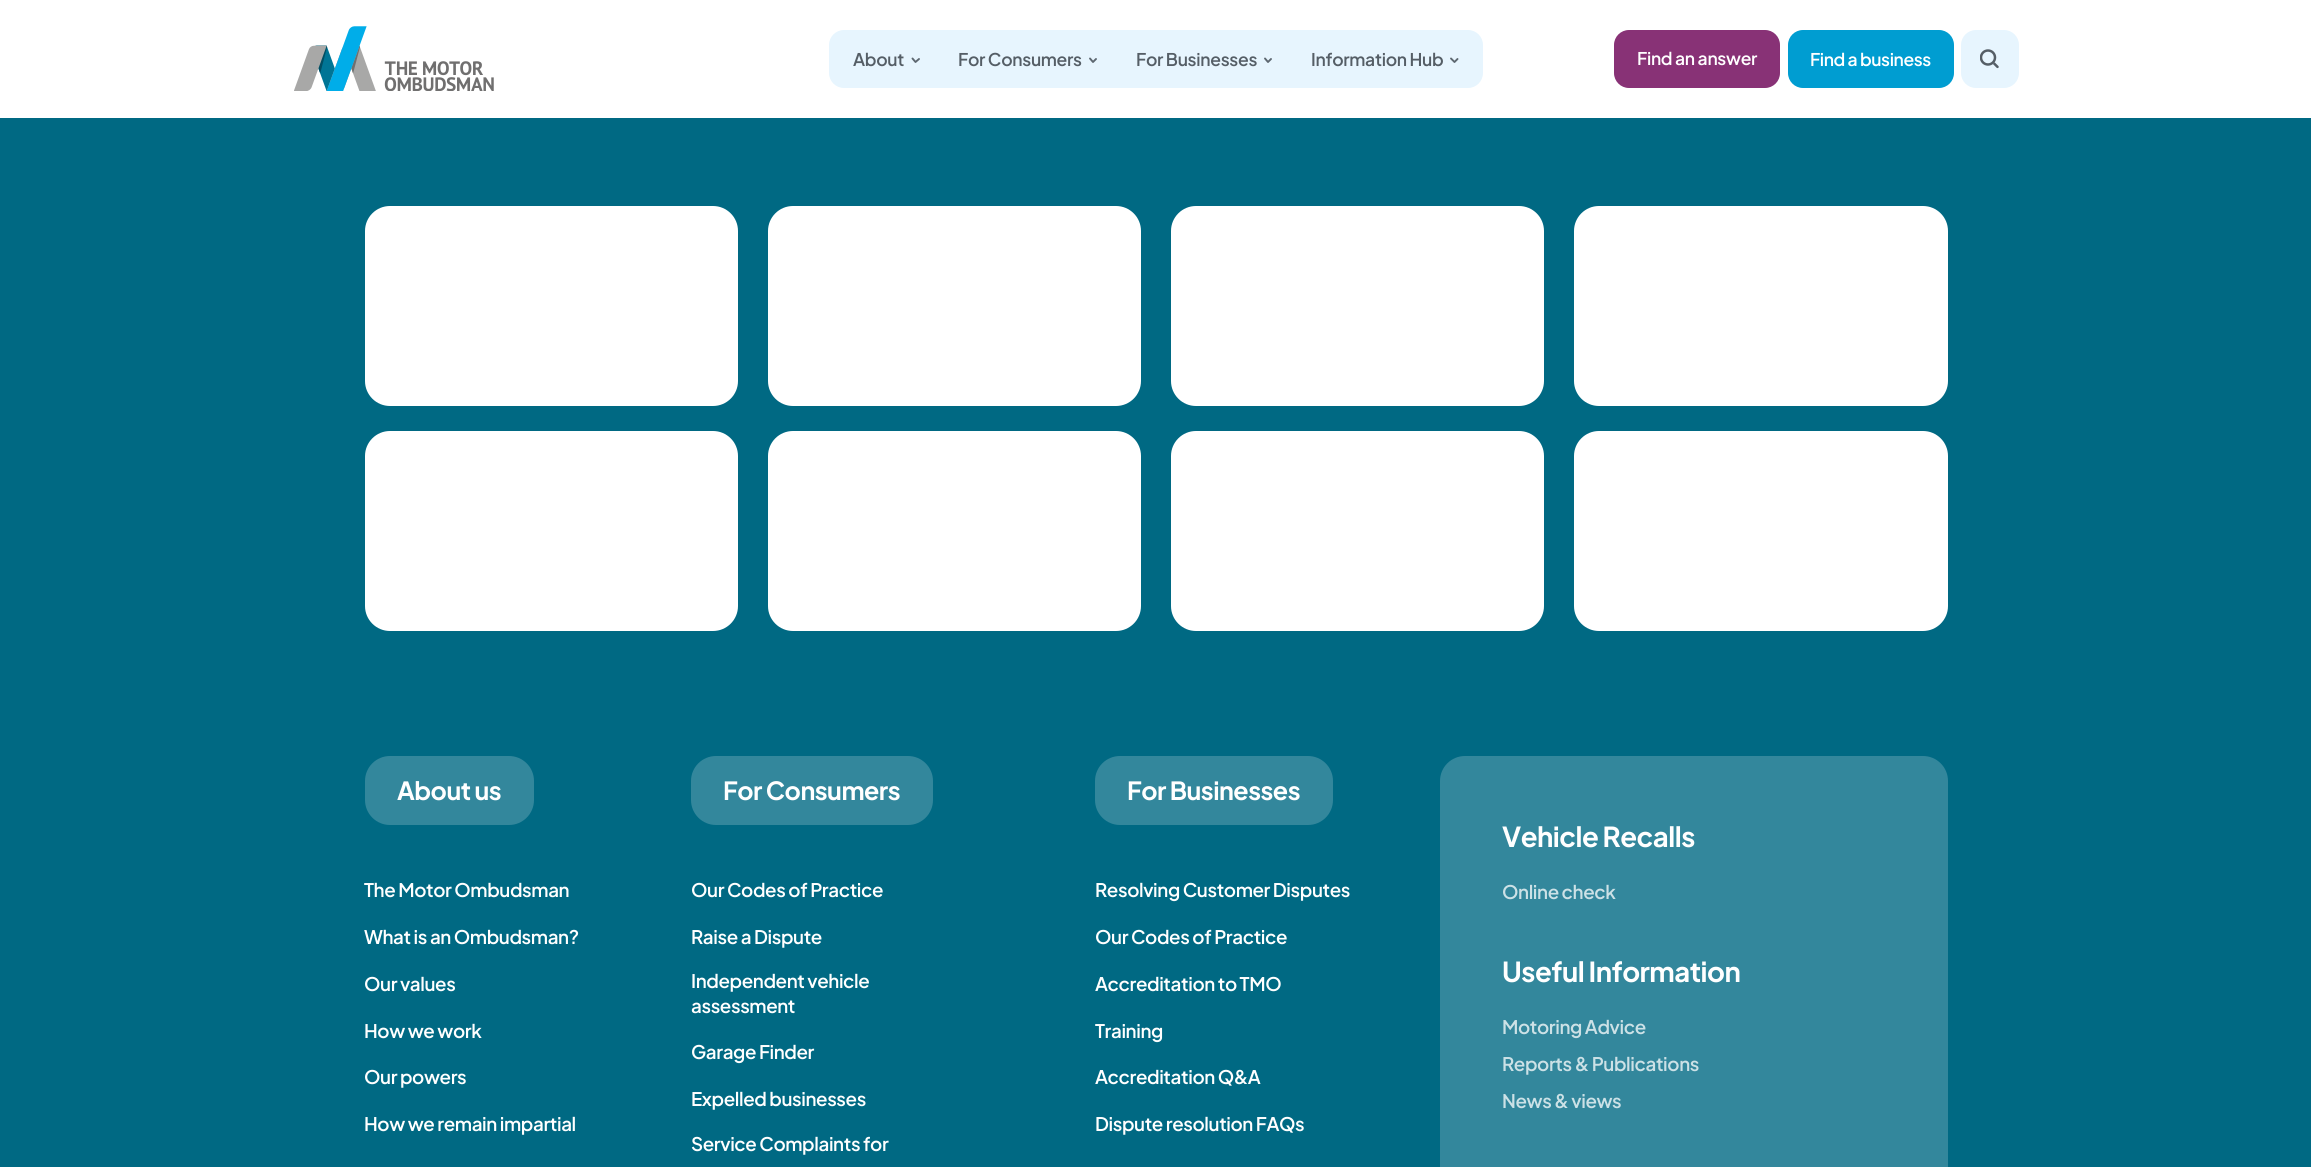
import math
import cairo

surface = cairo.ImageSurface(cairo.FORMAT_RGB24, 2311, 1167)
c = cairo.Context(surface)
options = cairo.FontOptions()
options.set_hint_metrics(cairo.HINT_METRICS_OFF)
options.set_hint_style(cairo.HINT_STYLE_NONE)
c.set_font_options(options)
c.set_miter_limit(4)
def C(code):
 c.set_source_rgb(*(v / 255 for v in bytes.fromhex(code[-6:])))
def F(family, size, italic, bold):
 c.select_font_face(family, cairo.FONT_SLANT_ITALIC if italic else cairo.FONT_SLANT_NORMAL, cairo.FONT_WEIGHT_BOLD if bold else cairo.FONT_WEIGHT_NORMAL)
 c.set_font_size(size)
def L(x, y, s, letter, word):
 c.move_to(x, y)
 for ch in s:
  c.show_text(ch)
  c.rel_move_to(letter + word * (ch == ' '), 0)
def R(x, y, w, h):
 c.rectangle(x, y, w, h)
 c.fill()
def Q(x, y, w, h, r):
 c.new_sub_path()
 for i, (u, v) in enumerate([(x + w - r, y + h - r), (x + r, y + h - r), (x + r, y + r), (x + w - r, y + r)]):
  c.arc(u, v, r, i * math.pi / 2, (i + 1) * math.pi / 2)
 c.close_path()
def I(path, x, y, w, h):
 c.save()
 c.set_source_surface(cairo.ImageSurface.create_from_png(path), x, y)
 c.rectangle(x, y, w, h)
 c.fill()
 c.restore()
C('006983')
c.paint()
C('ffffff')
R(0,0,2311,118)
I('1.png',294,26,200,65)
C('e7f5fe')
Q(829,30,654,58,15)
c.fill()
F('Plus Jakarta Sans SemiBold',17.5,0,0)
C('555e66')
L(853,66,'About',-.3,0)
c.new_path()
c.move_to(919,59)
c.line_to(915.5,62)
c.line_to(912.5,58.5)
C('5d6770')
c.set_line_width(1.9)
c.set_line_cap(cairo.LINE_CAP_ROUND)
c.set_line_join(cairo.LINE_JOIN_ROUND)
c.stroke()
C('555e66')
L(958,66,'For Consumers',-.3,0)
c.new_path()
c.move_to(1096,59)
c.line_to(1093,62)
c.line_to(1090,58.5)
C('5d6770')
c.stroke()
C('555e66')
L(1136,66,'For Businesses',-.3,0)
c.new_path()
c.move_to(1271,59)
c.line_to(1268,62)
c.line_to(1265,58.5)
C('5d6770')
c.stroke()
C('555e66')
L(1311,66,'Information Hub',-.3,0)
c.new_path()
c.move_to(1457.5,59)
c.line_to(1454.5,62)
c.line_to(1451,58.5)
C('5d6770')
c.stroke()
C('883276')
Q(1614,30,166,58,15)
c.fill()
C('ffffff')
L(1637,65,'Find an answer',-.3,0)
C('009dd1')
Q(1788,30,166,58,15)
c.fill()
C('ffffff')
L(1810,66,'Find a business',-.4,0)
C('e7f5fe')
Q(1961,30,58,58,15)
c.fill()
I('2.png',1980,49,19,20)
C('ffffff')
Q(365,206,373,200,25)
c.fill()
Q(768,206,373,200,25)
c.fill()
Q(1171,206,373,200,25)
c.fill()
Q(1574,206,374,200,25)
c.fill()
Q(365,431,373,200,25)
c.fill()
Q(768,431,373,200,25)
c.fill()
Q(1171,431,373,200,25)
c.fill()
Q(1574,431,374,200,25)
c.fill()
C('33879c')
Q(365,756,169,69,25)
c.fill()
F('Plus Jakarta Sans',25,0,1)
C('ffffff')
L(397,800,'About us',-.5,0)
F('Plus Jakarta Sans SemiBold',18.75,0,0)
L(364,897,'The Motor Ombudsman',-.4,0)
L(364,944,'What is an Ombudsman?',-.4,0)
L(364,991,'Our values',-.4,0)
L(364,1038,'How we work',-.4,0)
L(364,1084,'Our powers',-.4,0)
L(364,1131,'How we remain impartial',-.4,0)
C('33879c')
Q(691,756,242,69,25)
c.fill()
F('Plus Jakarta Sans',25,0,1)
C('ffffff')
L(723,800,'For Consumers',-.5,0)
F('Plus Jakarta Sans SemiBold',18.75,0,0)
L(691,897,'Our Codes of Practice',-.4,0)
L(691,944,'Raise a Dispute',-.4,0)
L(691,988,'Independent vehicle',-.4,0)
L(691,1013,'assessment',-.4,0)
L(691,1059,'Garage Finder',-.4,0)
L(691,1106,'Expelled businesses',-.4,0)
L(691,1151,'Service Complaints for',-.4,0)
C('33879c')
Q(1095,756,238,69,25)
c.fill()
F('Plus Jakarta Sans',25,0,1)
C('ffffff')
L(1127,800,'For Businesses',-.5,0)
F('Plus Jakarta Sans SemiBold',18.75,0,0)
L(1095,897,'Resolving Customer Disputes',-.4,0)
L(1095,944,'Our Codes of Practice',-.4,0)
L(1095,991,'Accreditation to TMO',-.4,0)
L(1095,1038,'Training',-.4,0)
L(1095,1084,'Accreditation Q&A',-.4,0)
L(1095,1131,'Dispute resolution FAQs',-.4,0)
C('33879c')
Q(1440,756,508,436,25)
c.fill()
F('Plus Jakarta Sans',27.5,0,1)
C('ffffff')
L(1502,847,'Vehicle Recalls',-.5,0)
F('Plus Jakarta Sans SemiBold',18.75,0,0)
C('cce1e6')
L(1502,899,'Online check',-.4,0)
F('Plus Jakarta Sans',27.5,0,1)
C('ffffff')
L(1502,982,'Useful Information',-.5,0)
F('Plus Jakarta Sans SemiBold',18.75,0,0)
C('cce1e6')
L(1502,1034,'Motoring Advice',-.4,0)
L(1502,1071,'Reports & Publications',-.4,0)
L(1502,1108,'News & views',-.4,0)
surface.write_to_png('o.png')
